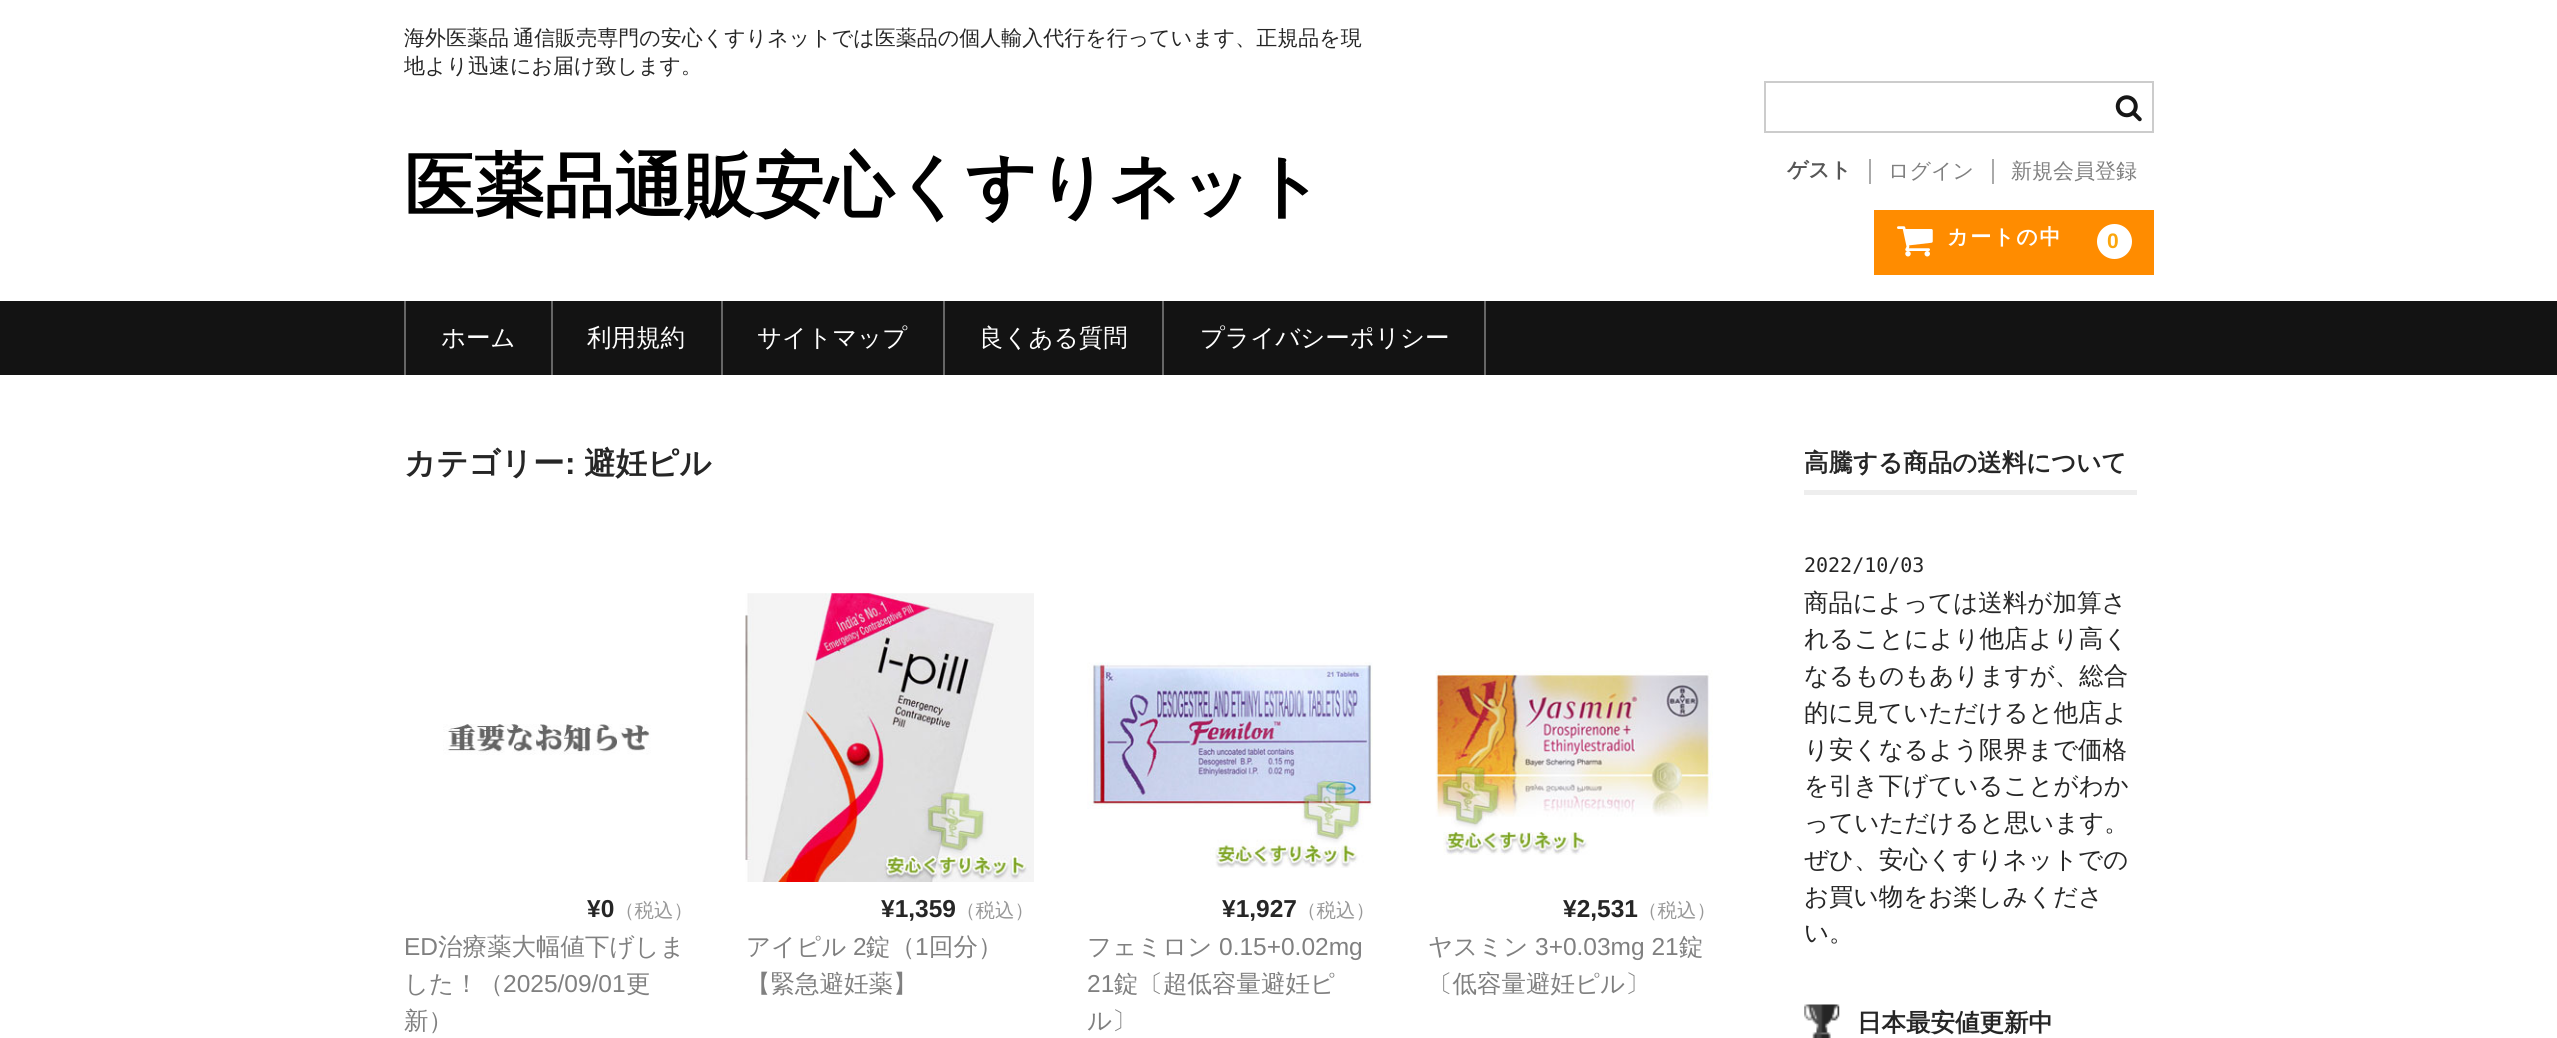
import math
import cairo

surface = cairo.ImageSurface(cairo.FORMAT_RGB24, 2557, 1038)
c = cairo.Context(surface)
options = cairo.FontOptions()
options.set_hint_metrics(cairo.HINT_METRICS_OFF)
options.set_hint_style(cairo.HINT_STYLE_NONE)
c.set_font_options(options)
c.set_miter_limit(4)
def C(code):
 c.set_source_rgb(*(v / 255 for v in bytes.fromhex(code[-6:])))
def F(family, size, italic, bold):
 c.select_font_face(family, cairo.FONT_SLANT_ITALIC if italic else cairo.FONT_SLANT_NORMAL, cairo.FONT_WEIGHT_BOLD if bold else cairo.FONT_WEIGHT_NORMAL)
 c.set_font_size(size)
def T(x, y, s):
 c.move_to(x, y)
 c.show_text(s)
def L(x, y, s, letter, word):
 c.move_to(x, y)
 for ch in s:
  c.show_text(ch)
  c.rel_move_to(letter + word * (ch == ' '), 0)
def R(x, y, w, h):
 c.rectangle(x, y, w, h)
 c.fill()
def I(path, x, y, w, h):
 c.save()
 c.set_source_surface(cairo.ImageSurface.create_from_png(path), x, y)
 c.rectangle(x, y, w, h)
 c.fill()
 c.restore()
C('ffffff')
c.paint()
F('WenQuanYi Zen Hei Medium',21,0,0)
C('262626')
L(404,45,'海外医薬品 通信販売専門の安心くすりネットでは医薬品の個人輸入代行を行っています、正規品を現',0,-2)
T(404,73,'地より迅速にお届け致します。')
F('WenQuanYi Zen Hei',70,0,1)
C('000000')
T(404,210,'医薬品通販安心くすりネット')
c.rectangle(1765,82,388,50)
C('cccccc')
c.stroke()
I('1.png',2115,95,27,27)
C('aaaaaa')
R(1869,159,2,25)
F('WenQuanYi Zen Hei',21,0,1)
C('565656')
T(1787,177,'ゲスト')
C('aaaaaa')
R(1992,159,2,25)
F('WenQuanYi Zen Hei Medium',21,0,0)
C('808080')
T(1888,178,'ログイン')
T(2011,178,'新規会員登録')
C('ff8c00')
R(1874,210,280,65)
I('2.png',1897,226,36,31)
F('WenQuanYi Zen Hei',21,0,1)
C('ffffff')
L(1947,244,'カートの中',1.75,0)
c.new_path()
c.arc(2114.5,241.5,17.5,0,2 * math.pi)
c.fill()
F('Liberation Sans',21,0,1)
C('fba60d')
L(2107,248,'0',1.75,0)
C('131313')
R(0,301,2557,74)
C('666666')
R(551,301,2,74)
R(404,301,2,74)
F('WenQuanYi Zen Hei Medium',24.5,0,0)
C('ffffff')
T(441,346,'ホーム')
C('666666')
R(721,301,2,74)
C('ffffff')
T(587,346,'利用規約')
C('666666')
R(943,301,2,74)
C('ffffff')
T(757,346,'サイトマップ')
C('666666')
R(1162,301,2,74)
C('ffffff')
T(979,346,'良くある質問')
C('666666')
R(1484,301,2,74)
C('ffffff')
T(1200,346,'プライバシーポリシー')
F('WenQuanYi Zen Hei',31.5,0,1)
C('262626')
T(404,474,'カテゴリー')
F('Liberation Sans',31.5,0,1)
T(565,474,':')
F('WenQuanYi Zen Hei',31.5,0,1)
T(584,474,'避妊ピル')
I('3.png',443,724,208,31)
F('Liberation Sans',24.5,0,1)
T(587,917,'¥0')
F('WenQuanYi Zen Hei Medium',19.5,0,0)
C('999999')
T(615,917,'（税込）')
F('Liberation Sans',24.5,0,0)
C('808080')
T(404,955,'ED')
F('WenQuanYi Zen Hei Medium',24.5,0,0)
T(438,955,'治療薬大幅値下げしま')
T(404,992,'した！（')
F('Liberation Sans',24.5,0,0)
T(503,992,'2025/09/01')
F('WenQuanYi Zen Hei Medium',24.5,0,0)
T(626,992,'更')
T(404,1029,'新）')
I('4.png',745,593,289,289)
F('Liberation Sans',24.5,0,1)
C('262626')
T(881,917,'¥1,359')
F('WenQuanYi Zen Hei Medium',19.5,0,0)
C('999999')
T(956,917,'（税込）')
F('WenQuanYi Zen Hei Medium',24.5,0,0)
C('808080')
T(746,955,'アイピル')
F('Liberation Sans',24.5,0,0)
T(853,955,'2')
F('WenQuanYi Zen Hei Medium',24.5,0,0)
T(866,955,'錠（')
F('Liberation Sans',24.5,0,0)
T(915,955,'1')
F('WenQuanYi Zen Hei Medium',24.5,0,0)
T(929,955,'回分）')
T(746,992,'【緊急避妊薬】')
I('5.png',1087,662,286,206)
F('Liberation Sans',24.5,0,1)
C('262626')
T(1222,917,'¥1,927')
F('WenQuanYi Zen Hei Medium',19.5,0,0)
C('999999')
T(1297,917,'（税込）')
F('WenQuanYi Zen Hei Medium',24.5,0,0)
C('808080')
T(1087,955,'フェミロン')
F('Liberation Sans',24.5,0,0)
T(1219,955,'0.15+0.02mg')
T(1087,992,'21')
F('WenQuanYi Zen Hei Medium',24.5,0,0)
T(1114,992,'錠〔超低容量避妊ピ')
T(1087,1029,'ル〕')
I('6.png',1435,670,278,185)
F('Liberation Sans',24.5,0,1)
C('262626')
T(1563,917,'¥2,531')
F('WenQuanYi Zen Hei Medium',19.5,0,0)
C('999999')
T(1638,917,'（税込）')
F('WenQuanYi Zen Hei Medium',24.5,0,0)
C('808080')
T(1428,955,'ヤスミン')
F('Liberation Sans',24.5,0,0)
T(1535,955,'3+0.03mg 21')
F('WenQuanYi Zen Hei Medium',24.5,0,0)
T(1679,955,'錠')
T(1428,992,'〔低容量避妊ピル〕')
C('eeeeee')
R(1804,490,333,5)
F('WenQuanYi Zen Hei',24.5,0,1)
C('262626')
T(1804,471,'高騰する商品の送料について')
F('DejaVu Sans Mono',20,0,0)
T(1804,572,'2022/10/03')
F('WenQuanYi Zen Hei Medium',24.5,0,0)
T(1804,611,'商品によっては送料が加算さ')
T(1804,647,'れることにより他店より高く')
T(1804,684,'なるものもありますが、総合')
T(1804,721,'的に見ていただけると他店よ')
T(1804,758,'り安くなるよう限界まで価格')
T(1804,794,'を引き下げていることがわか')
T(1804,831,'っていただけると思います。')
T(1804,868,'ぜひ、安心くすりネットでの')
T(1804,905,'お買い物をお楽しみくださ')
T(1804,941,'い。')
I('7.png',1804,1004,36,34)
F('WenQuanYi Zen Hei',24.5,0,1)
T(1857,1031,'日本最安値更新中')
surface.write_to_png('o.png')
